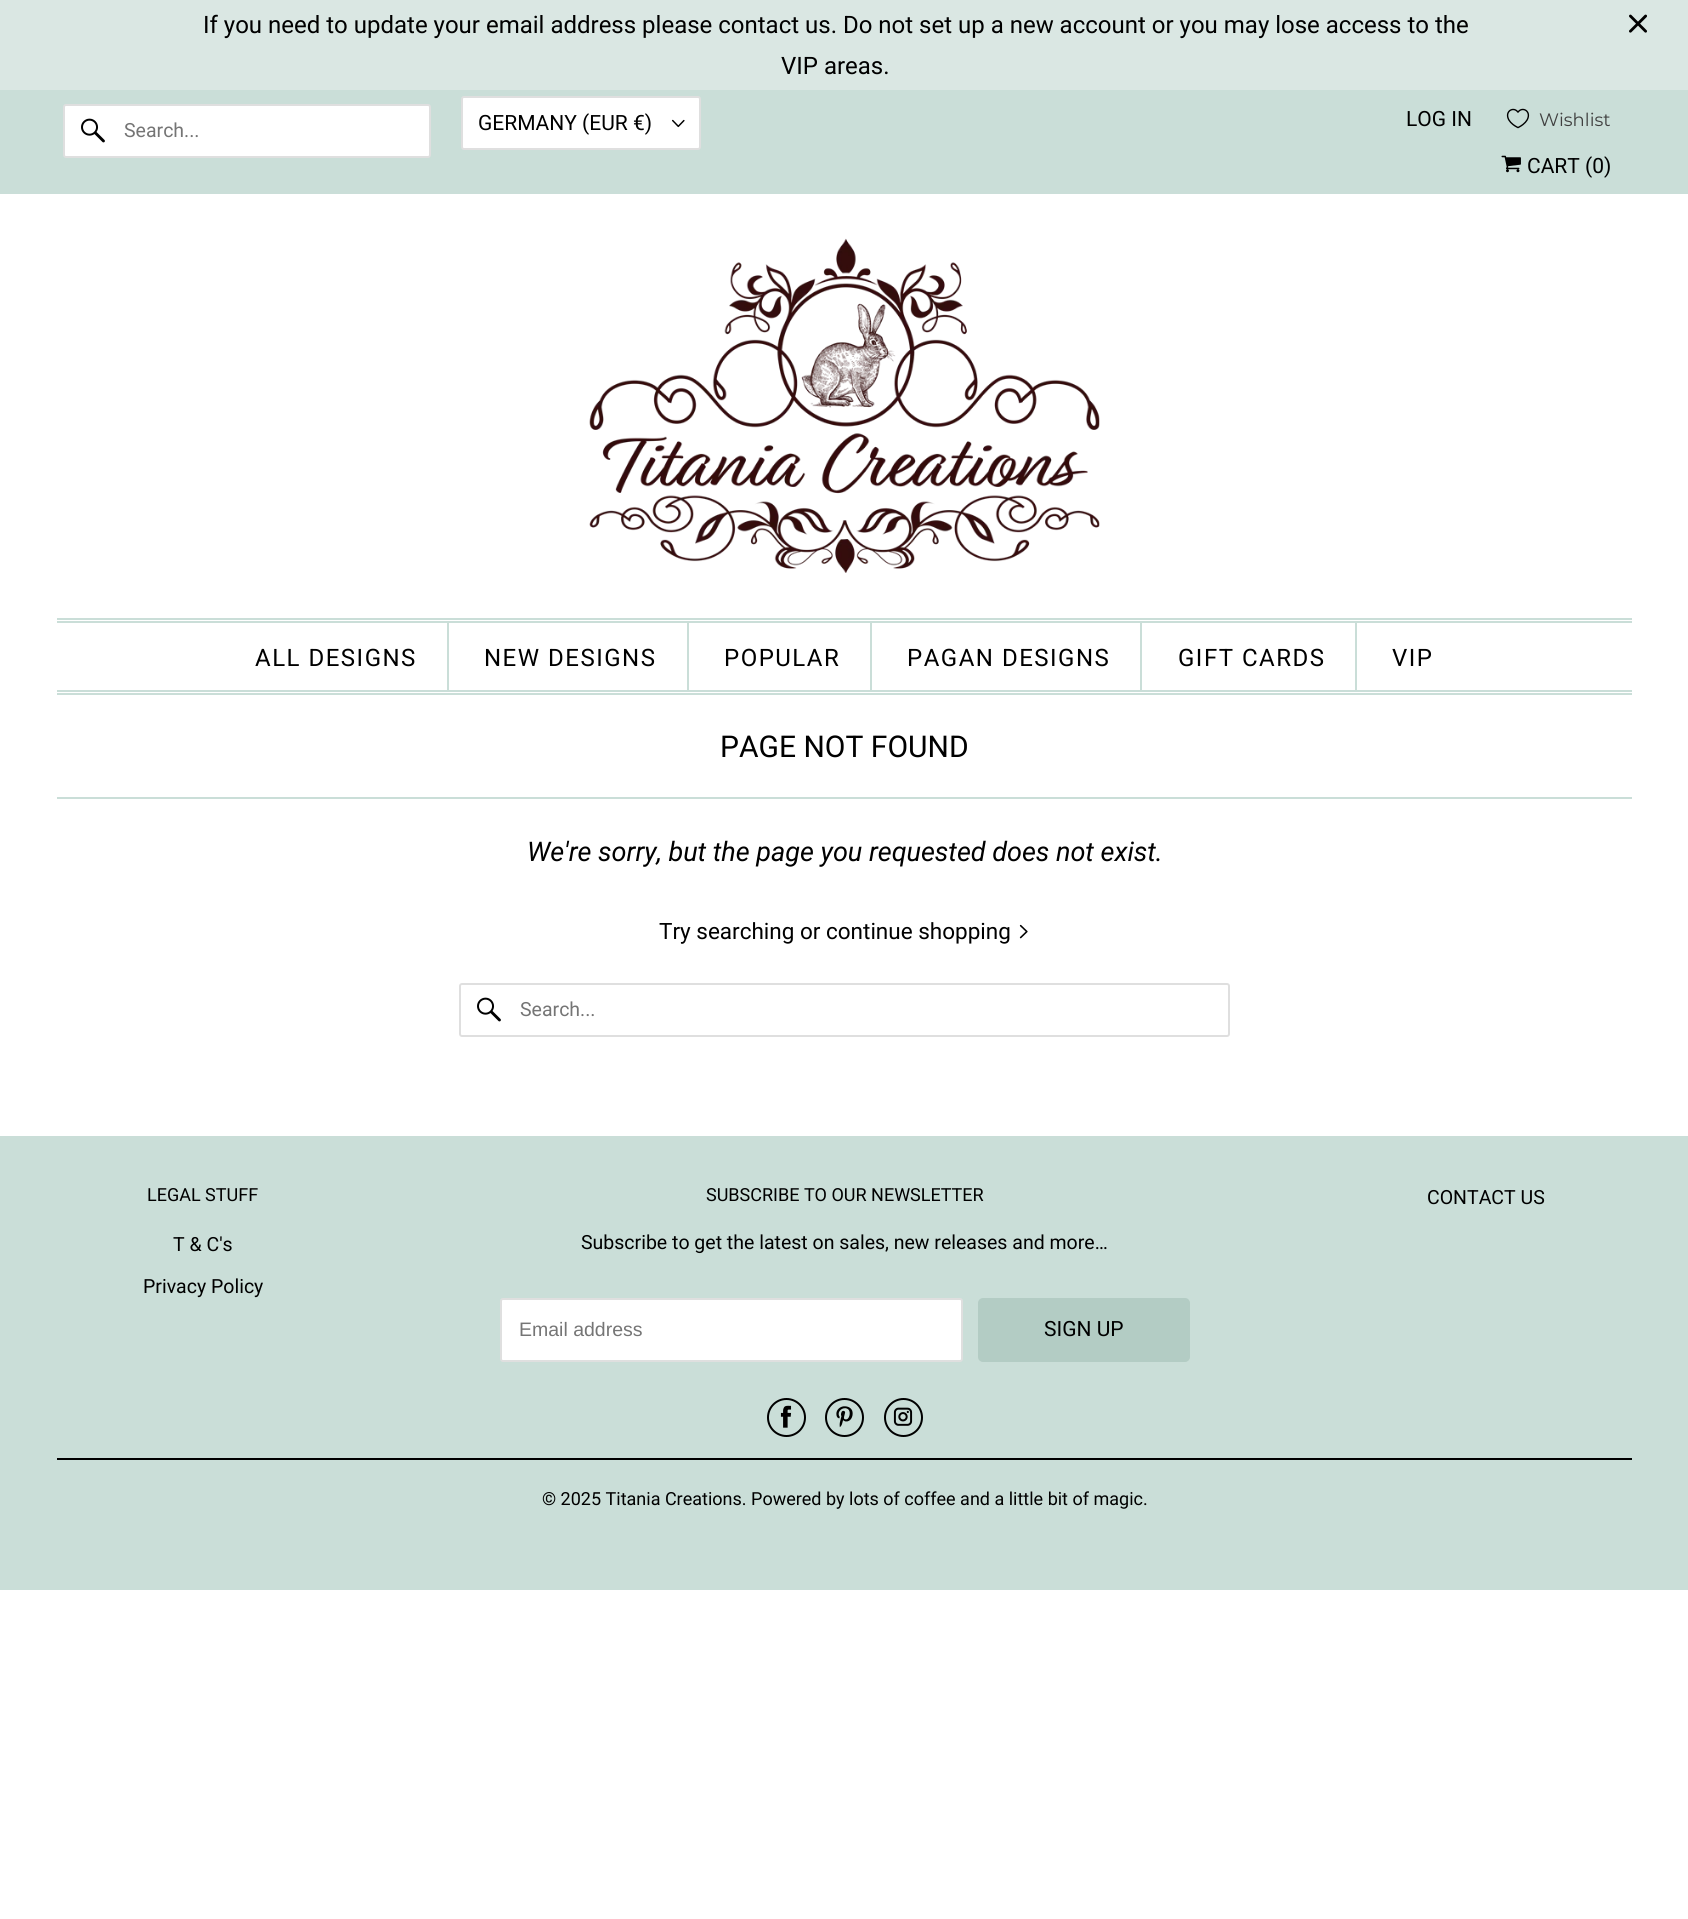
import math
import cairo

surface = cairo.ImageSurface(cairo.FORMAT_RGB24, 1688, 1919)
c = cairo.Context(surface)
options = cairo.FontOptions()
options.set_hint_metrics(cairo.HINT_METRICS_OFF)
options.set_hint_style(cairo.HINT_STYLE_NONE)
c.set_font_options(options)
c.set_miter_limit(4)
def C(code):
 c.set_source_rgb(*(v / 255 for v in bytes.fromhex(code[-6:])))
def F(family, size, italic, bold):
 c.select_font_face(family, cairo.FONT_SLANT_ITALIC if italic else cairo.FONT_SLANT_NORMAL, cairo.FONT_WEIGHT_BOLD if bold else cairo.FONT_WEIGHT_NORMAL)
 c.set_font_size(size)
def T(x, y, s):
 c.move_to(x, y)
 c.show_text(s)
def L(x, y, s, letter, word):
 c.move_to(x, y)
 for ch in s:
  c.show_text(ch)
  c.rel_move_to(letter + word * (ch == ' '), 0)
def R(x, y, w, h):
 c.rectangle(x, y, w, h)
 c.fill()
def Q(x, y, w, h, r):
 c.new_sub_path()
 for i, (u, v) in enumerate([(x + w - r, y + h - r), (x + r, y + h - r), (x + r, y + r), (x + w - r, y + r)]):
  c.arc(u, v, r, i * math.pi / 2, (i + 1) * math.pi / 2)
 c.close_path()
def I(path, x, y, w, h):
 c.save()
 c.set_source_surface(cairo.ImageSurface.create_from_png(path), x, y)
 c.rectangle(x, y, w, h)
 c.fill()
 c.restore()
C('ffffff')
c.paint()
C('dae7e3')
R(0,0,1688,90)
F('Roboto',24,0,0)
C('000000')
T(203,33,'If you need to update your email address please contact us. Do not set up a new account or you may lose access to the')
T(781,74,'VIP areas.')
I('1.png',1629,14,18,19)
C('caded8')
R(0,90,1688,104)
C('ffffff')
Q(64,105,366,52,2)
c.fill_preserve()
C('dfdfdf')
c.stroke()
I('2.png',81,118,24,25)
F('Roboto',19.5,0,0)
C('757575')
T(124,137,'Search...')
C('ffffff')
Q(462,97,238,52,2)
c.fill_preserve()
C('dfdfdf')
c.stroke()
F('Roboto',21,0,0)
C('000000')
T(478,130,'GERMANY (EUR €)')
I('3.png',672,119,13,9)
T(1406,126,'LOG IN')
I('4.png',1506,108,24,21)
F('Montserrat',18,0,0)
C('404040')
T(1539,126,'Wishlist')
I('5.png',1501,155,20,18)
F('Roboto',21,0,0)
C('000000')
T(1527,173,'CART (0)')
I('6.png',589,238,511,335)
C('caded8')
R(57,618,1575,2)
R(57,621,1575,2)
R(57,690,1575,2)
R(57,693,1575,2)
R(447,623,2,67)
F('Roboto',24,0,0)
C('000000')
L(255,666,'ALL DESIGNS',1.5,0)
C('caded8')
R(687,623,2,67)
C('000000')
L(484,666,'NEW DESIGNS',1.5,0)
C('caded8')
R(870,623,2,67)
C('000000')
L(724,666,'POPULAR',1.5,0)
C('caded8')
R(1140,623,2,67)
C('000000')
L(907,666,'PAGAN DESIGNS',1.5,0)
C('caded8')
R(1355,623,2,67)
C('000000')
L(1178,666,'GIFT CARDS',1.5,0)
L(1392,666,'VIP',1.5,0)
C('caded8')
R(57,797,1575,2)
F('Roboto',30,0,0)
C('000000')
T(720,757,'PAGE NOT FOUND')
F('Roboto',27,1,0)
T(527,861,'We\'re sorry, but the page you requested does not exist.')
F('Roboto',22.5,0,0)
T(659,939,'Try searching or continue shopping')
I('7.png',1019,924,9,15)
Q(460,984,769,52,2)
C('dfdfdf')
c.stroke()
I('2.png',477,997,24,25)
F('Roboto',19.5,0,0)
C('757575')
T(520,1016,'Search...')
C('caded8')
R(0,1136,1688,454)
F('Roboto',18,0,0)
C('000000')
T(147,1201,'LEGAL STUFF')
F('Roboto',19.5,0,0)
T(173,1251,'T & C\'s')
T(143,1293,'Privacy Policy')
F('Roboto',18,0,0)
T(706,1201,'SUBSCRIBE TO OUR NEWSLETTER')
F('Roboto',19.5,0,0)
T(581,1249,'Subscribe to get the latest on sales, new releases and more…')
C('ffffff')
Q(501,1299,461,62,2)
c.fill_preserve()
C('dfdfdf')
c.stroke()
F('Liberation Sans',19.5,0,0)
C('757575')
T(519,1336,'Email address')
C('b3ccc4')
Q(979,1299,210,62,4)
c.fill_preserve()
c.stroke()
F('Roboto',21,0,0)
C('000000')
T(1044,1336,'SIGN UP')
c.new_path()
c.arc(786.5,1417.5,18.5,0,2 * math.pi)
c.stroke()
I('8.png',780,1405,12,23)
c.arc(844.5,1417.5,18.5,0,2 * math.pi)
c.stroke()
I('9.png',836,1406,17,22)
c.arc(903.5,1417.5,18.5,0,2 * math.pi)
c.stroke()
I('10.png',893,1407,20,19)
F('Roboto',19.5,0,0)
T(1427,1204,'CONTACT US')
R(57,1458,1575,2)
F('Roboto',18,0,0)
T(542,1505,'© 2025 Titania Creations. Powered by lots of coffee and a little bit of magic.')
surface.write_to_png('o.png')
